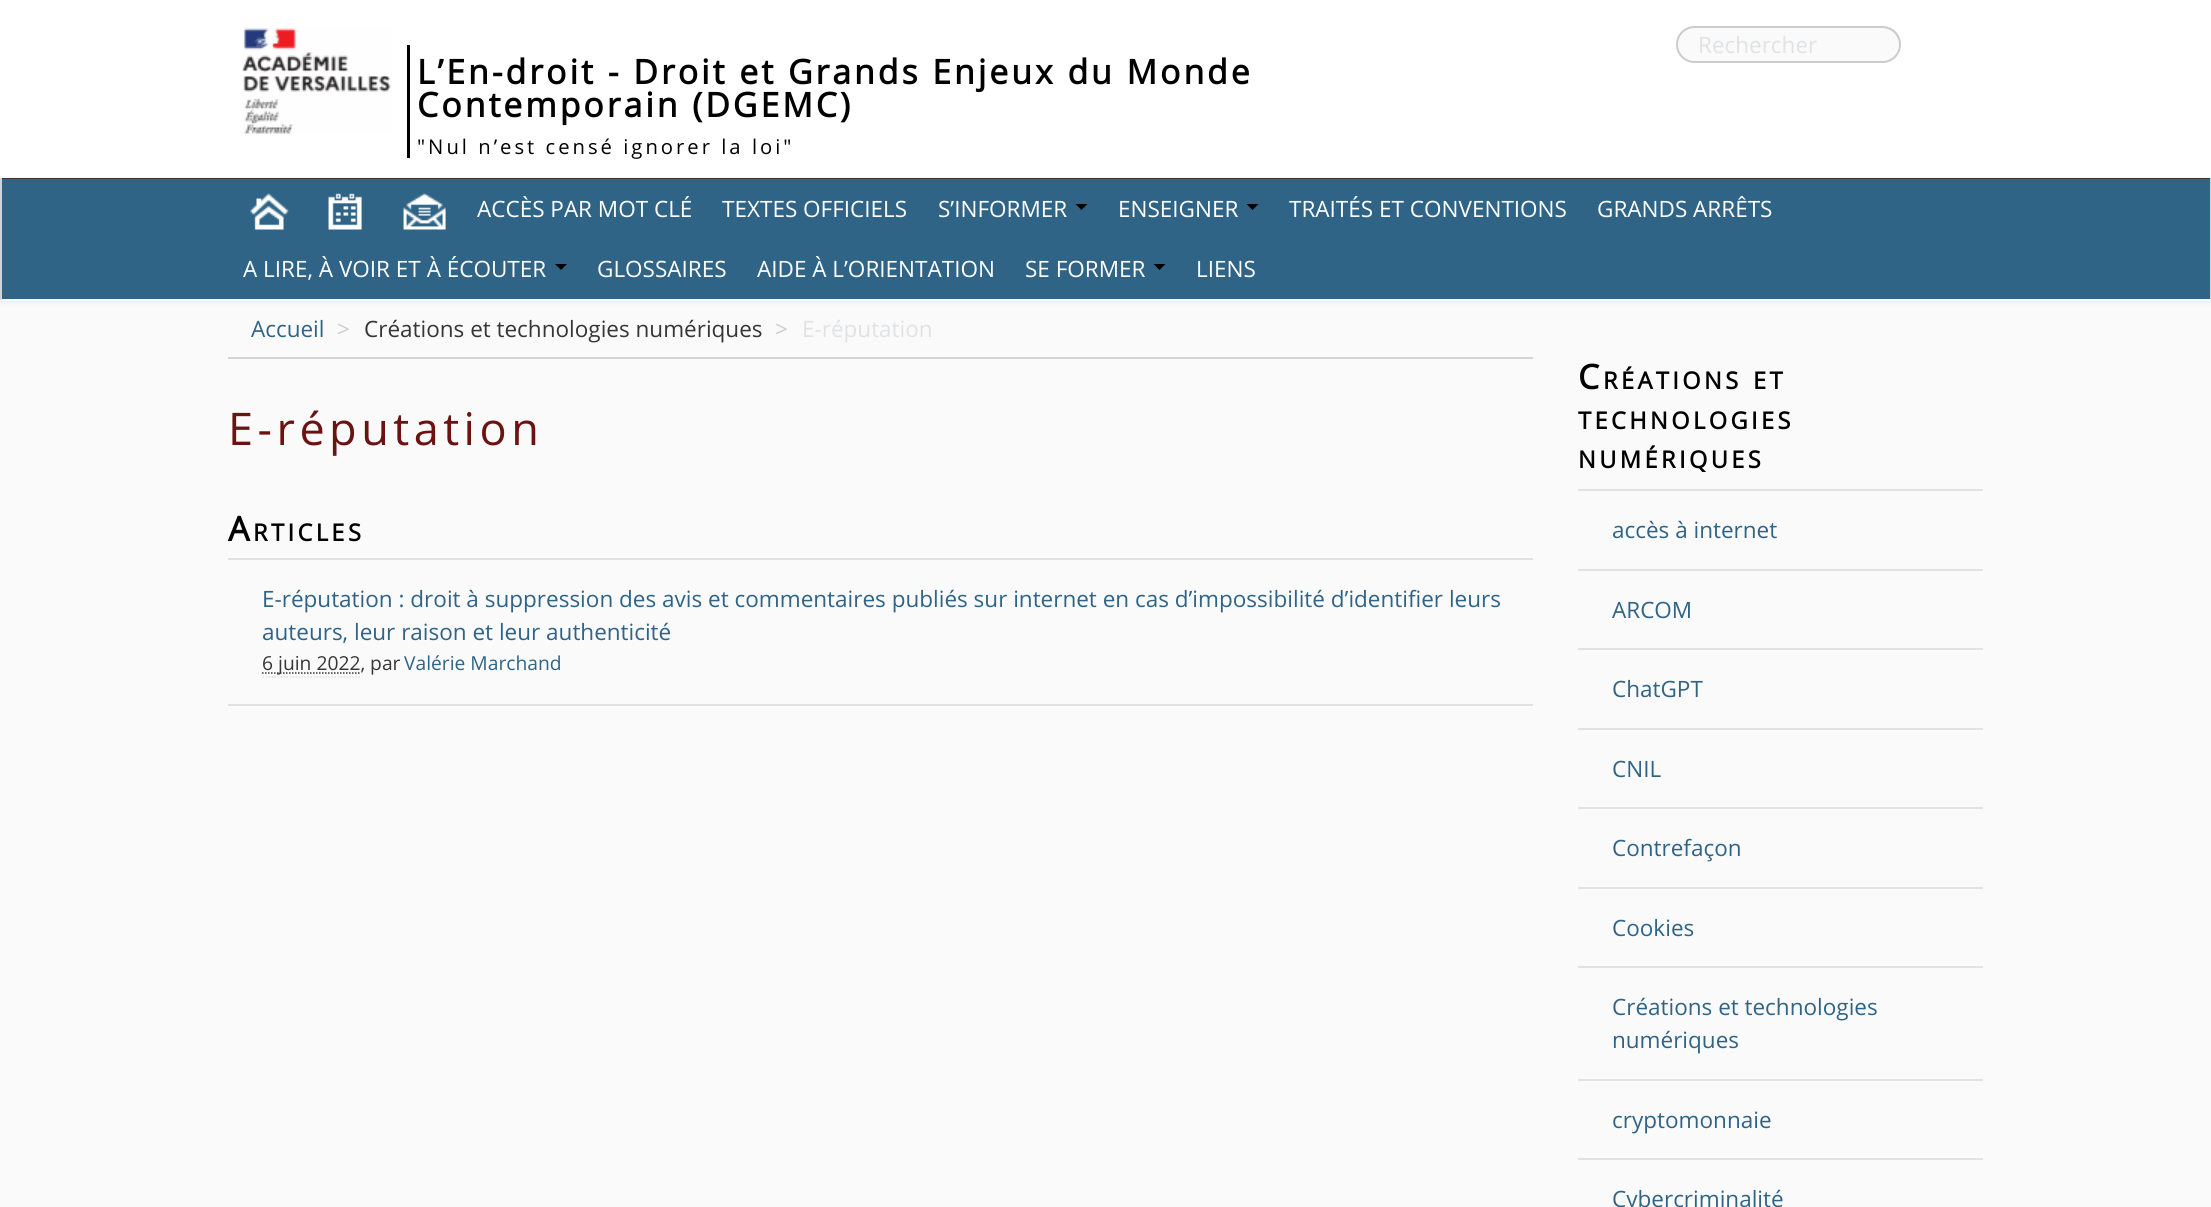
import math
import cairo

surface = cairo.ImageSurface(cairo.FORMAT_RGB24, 2211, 1207)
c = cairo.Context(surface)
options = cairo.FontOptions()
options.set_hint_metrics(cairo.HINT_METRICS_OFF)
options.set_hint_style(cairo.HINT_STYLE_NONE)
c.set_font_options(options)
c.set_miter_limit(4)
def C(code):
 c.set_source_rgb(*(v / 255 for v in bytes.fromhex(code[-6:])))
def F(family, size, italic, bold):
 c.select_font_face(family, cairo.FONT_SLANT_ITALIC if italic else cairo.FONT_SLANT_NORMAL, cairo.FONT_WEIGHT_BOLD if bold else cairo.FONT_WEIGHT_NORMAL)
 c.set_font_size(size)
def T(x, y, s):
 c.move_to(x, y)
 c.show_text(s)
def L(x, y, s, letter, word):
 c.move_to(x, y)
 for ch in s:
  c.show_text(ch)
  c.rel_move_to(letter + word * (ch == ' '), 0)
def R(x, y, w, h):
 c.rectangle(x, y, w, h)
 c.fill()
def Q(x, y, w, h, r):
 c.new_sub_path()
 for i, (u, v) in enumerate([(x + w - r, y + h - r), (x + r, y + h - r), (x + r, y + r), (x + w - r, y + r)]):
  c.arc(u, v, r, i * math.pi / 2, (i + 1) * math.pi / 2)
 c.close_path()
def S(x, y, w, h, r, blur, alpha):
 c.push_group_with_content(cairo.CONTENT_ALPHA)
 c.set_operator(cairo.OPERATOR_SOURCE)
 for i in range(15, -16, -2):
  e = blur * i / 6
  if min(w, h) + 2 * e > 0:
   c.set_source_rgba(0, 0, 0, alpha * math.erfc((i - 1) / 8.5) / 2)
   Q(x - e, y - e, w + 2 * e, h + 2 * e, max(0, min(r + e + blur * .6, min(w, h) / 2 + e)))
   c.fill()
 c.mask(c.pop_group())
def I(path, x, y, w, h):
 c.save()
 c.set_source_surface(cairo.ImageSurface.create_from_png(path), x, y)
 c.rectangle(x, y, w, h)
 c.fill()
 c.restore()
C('fafafa')
c.paint()
C('000000')
S(0,179,2211,123,0,3,.07)
C('ffffff')
R(0,0,2211,176)
C('363636')
R(0,178,2211,1)
C('d2d5d8')
R(2210,177,1,123)
C('fafafa')
R(0,299,2211,2)
C('d2d5d8')
R(0,177,2,123)
C('fafafa')
R(0,176,2211,2)
Q(1676,26,225,37,18.5)
c.fill()
C('e7e7e7')
c.new_path()
c.move_to(1694,28)
c.line_to(1882,28)
c.curve_to(1891,28,1899,36,1899,45)
c.curve_to(1900,20,1863,27,1850,27)
c.line_to(1726,27)
c.curve_to(1713,27,1676,20,1677,45)
c.curve_to(1677,36,1685,28,1694,28)
c.close_path()
c.fill()
Q(1677,27,223,35,17.5)
C('cccccc')
c.stroke()
F('Open Sans',22.5,0,0)
C('e0e2e4')
T(1698,53,'Rechercher')
I('1.png',242,28,149,106)
C('000000')
R(407,45,3,113)
F('Open Sans',33.75,0,1)
L(417,84,'L’En-droit - Droit et Grands Enjeux du Monde',3,0)
L(417,117,'Contemporain (DGEMC)',3,0)
F('Open Sans',20.25,0,0)
L(417,154,'"Nul n’est censé ignorer la loi"',3,0)
C('2f6486')
R(2,179,2208,120)
I('2.png',250,193,39,37)
I('3.png',328,193,34,37)
I('4.png',403,193,43,37)
F('Open Sans',22.5,0,0)
C('ffffff')
T(477,217,'ACCÈS PAR MOT CLÉ')
T(722,217,'TEXTES OFFICIELS')
T(938,217,'S’INFORMER')
C('000000')
c.new_path()
c.move_to(1075.5,204)
c.line_to(1087.5,204)
c.line_to(1081.5,210)
c.close_path()
c.fill()
C('ffffff')
T(1118,217,'ENSEIGNER')
C('000000')
c.new_path()
c.move_to(1246.5,204)
c.line_to(1258.5,204)
c.line_to(1252.5,210)
c.close_path()
c.fill()
C('ffffff')
T(1289,217,'TRAITÉS ET CONVENTIONS')
T(1597,217,'GRANDS ARRÊTS')
T(243,277,'A LIRE, À VOIR ET À ÉCOUTER')
C('000000')
c.new_path()
c.move_to(555,264)
c.line_to(567,264)
c.line_to(561,270)
c.close_path()
c.fill()
C('ffffff')
T(597,277,'GLOSSAIRES')
T(757,277,'AIDE À L’ORIENTATION')
T(1025,277,'SE FORMER')
C('000000')
c.new_path()
c.move_to(1153.5,264)
c.line_to(1165.5,264)
c.line_to(1159.5,270)
c.close_path()
c.fill()
C('ffffff')
T(1196,277,'LIENS')
C('d4d4d4')
R(228,357,1305,2)
C('2f6486')
T(251,337,'Accueil')
C('cccccc')
T(337,337,'>')
C('363636')
T(364,337,'Créations et technologies numériques')
C('cccccc')
T(775,337,'>')
C('e0e2e4')
T(802,337,'E-réputation')
F('Open Sans',45,0,0)
C('6a1311')
L(228,445,'E-réputation',4.5,0)
F('Open Sans',33.75,0,1)
C('000000')
L(228,541,'A',3.4,0)
F('Open Sans',23.6,0,1)
L(253,541,'RTICLES',3.4,0)
C('e0e2e4')
R(228,558,1305,2)
R(228,704,1305,2)
F('Open Sans',22.5,0,0)
C('2f6486')
T(262,607,'E-réputation : droit à suppression des avis et commentaires publiés sur internet en cas d’impossibilité d’identifier leurs')
T(262,640,'auteurs, leur raison et leur authenticité')
c.new_path()
c.move_to(262,673)
c.line_to(359.5,673)
C('363636')
c.set_line_width(1.5)
c.set_dash([1.5,1.5])
c.stroke()
F('Open Sans',19.25,0,0)
T(262,670,'6 juin 2022, par')
c.new_path()
c.move_to(262.5,677)
c.line_to(360,677)
C('e0e2e4')
c.stroke()
C('2f6486')
T(404,670,'Valérie Marchand')
F('Open Sans',33.75,0,1)
C('000000')
L(1578,389,'C',3.4,0)
F('Open Sans',23.6,0,1)
L(1603,389,'RÉATIONS',3.4,0)
L(1753,389,'ET',3.4,0)
L(1578,429,'TECHNOLOGIES',3.4,0)
L(1578,468,'NUMÉRIQUES',3.4,0)
C('e0e2e4')
R(1578,489,405,2)
R(1578,569,405,2)
F('Open Sans',22.5,0,0)
C('2f6486')
T(1612,538,'accès à internet')
C('e0e2e4')
R(1578,648,405,2)
C('2f6486')
T(1612,618,'ARCOM')
C('e0e2e4')
R(1578,728,405,2)
C('2f6486')
T(1612,697,'ChatGPT')
C('e0e2e4')
R(1578,807,405,2)
C('2f6486')
T(1612,777,'CNIL')
C('e0e2e4')
R(1578,887,405,2)
C('2f6486')
T(1612,856,'Contrefaçon')
C('e0e2e4')
R(1578,966,405,2)
C('2f6486')
T(1612,936,'Cookies')
C('e0e2e4')
R(1578,1079,405,2)
C('2f6486')
T(1612,1015,'Créations et technologies')
T(1612,1048,'numériques')
C('e0e2e4')
R(1578,1158,405,2)
C('2f6486')
T(1612,1128,'cryptomonnaie')
T(1612,1207,'Cybercriminalité')
surface.write_to_png('o.png')
